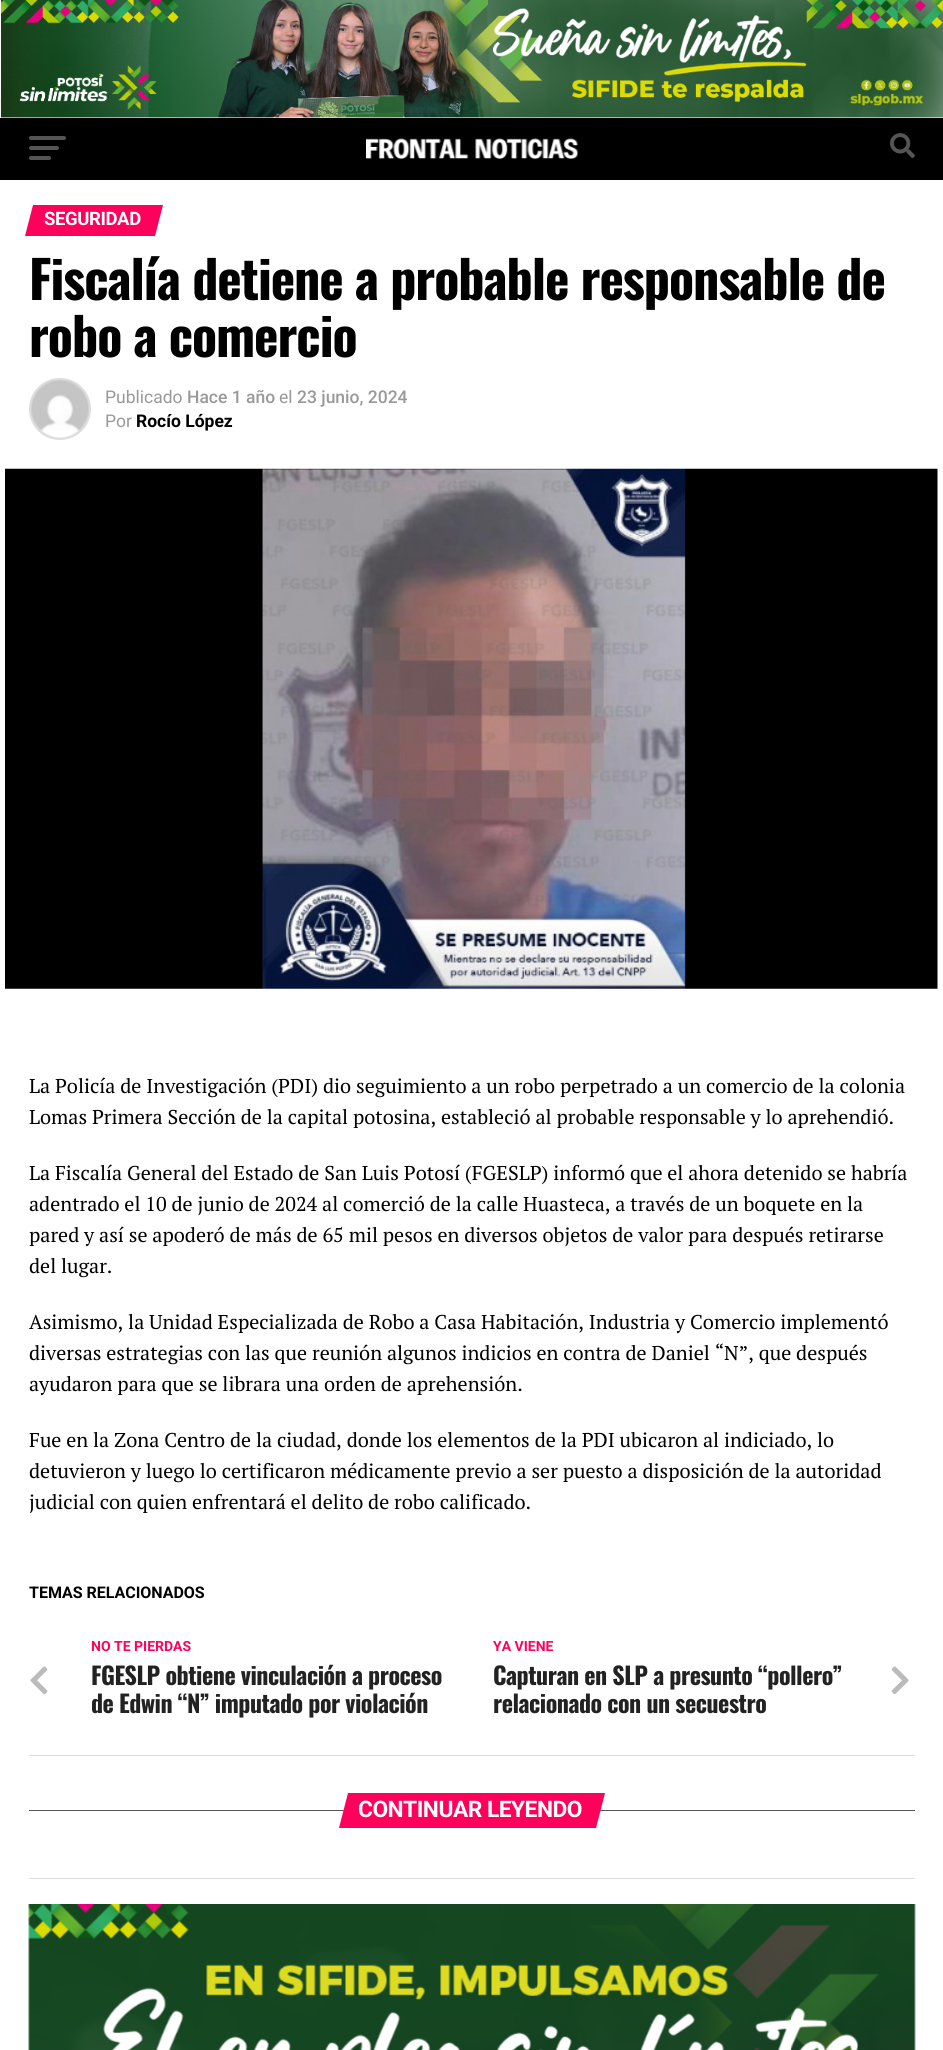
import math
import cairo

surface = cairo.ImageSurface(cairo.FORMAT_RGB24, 943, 2050)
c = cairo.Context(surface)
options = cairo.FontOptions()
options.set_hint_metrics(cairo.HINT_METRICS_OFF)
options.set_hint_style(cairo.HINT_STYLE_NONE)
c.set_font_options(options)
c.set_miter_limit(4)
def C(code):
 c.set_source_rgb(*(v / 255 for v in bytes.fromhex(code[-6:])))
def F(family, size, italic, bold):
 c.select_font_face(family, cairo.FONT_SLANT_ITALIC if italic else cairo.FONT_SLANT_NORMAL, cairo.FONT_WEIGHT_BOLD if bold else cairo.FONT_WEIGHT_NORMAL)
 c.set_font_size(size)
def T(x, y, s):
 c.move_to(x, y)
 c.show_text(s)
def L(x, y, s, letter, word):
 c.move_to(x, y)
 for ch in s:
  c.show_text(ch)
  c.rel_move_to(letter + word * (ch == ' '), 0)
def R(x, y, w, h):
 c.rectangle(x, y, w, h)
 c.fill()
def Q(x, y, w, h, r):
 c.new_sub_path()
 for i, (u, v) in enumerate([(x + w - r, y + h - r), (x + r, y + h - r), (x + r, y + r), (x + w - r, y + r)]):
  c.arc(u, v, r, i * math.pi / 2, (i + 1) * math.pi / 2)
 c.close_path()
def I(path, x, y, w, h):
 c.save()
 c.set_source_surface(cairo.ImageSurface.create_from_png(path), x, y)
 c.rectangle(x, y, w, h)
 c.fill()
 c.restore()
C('ffffff')
c.paint()
c.rectangle(.5,98.5,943,25)
C('f7f7f7')
c.set_line_width(1)
c.stroke()
I('1.png',1,0,942,118)
C('000000')
R(0,118,943,62)
C('555555')
Q(29,136,37,4,2)
c.fill()
Q(29,146,30,4,2)
c.fill()
Q(29,156,22,4,2)
c.fill()
I('2.png',366,138,212,22)
I('3.png',890,133,25,26)
C('ff005b')
c.new_path()
c.move_to(33,205)
c.line_to(163,205)
c.line_to(155,236)
c.line_to(25,236)
c.close_path()
c.fill()
F('Roboto',18.5,0,1)
C('ffffff')
L(44,225,'SEGURIDAD',-.4,0)
F('Oswald',52,0,1)
C('000000')
L(29,300,'Fiscalía detiene a probable responsable de',-1.05,0)
L(29,357,'robo a comercio',-1.05,0)
c.new_path()
c.arc(60,409,29.5,0,2 * math.pi)
C('dddddd')
c.set_line_width(3)
c.stroke()
I('4.png',31,380,58,58)
F('Roboto',17.5,0,0)
C('999999')
T(105,403,'Publicado')
F('Roboto Medium',17.5,0,0)
T(187,403,'Hace 1 año')
F('Roboto',17.5,0,0)
T(279,403,'el')
F('Roboto Medium',17.5,0,0)
T(297,403,'23 junio, 2024')
F('Roboto',17.5,0,0)
T(105,427,'Por')
F('Roboto',17.5,0,1)
C('000000')
T(136,427,'Rocío López')
I('5.png',5,468,933,521)
F('PT Serif',20,0,0)
T(29,1093,'La Policía de Investigación (PDI) dio seguimiento a un robo perpetrado a un comercio de la colonia')
T(29,1124,'Lomas Primera Sección de la capital potosina, estableció al probable responsable y lo aprehendió.')
T(29,1180,'La Fiscalía General del Estado de San Luis Potosí (FGESLP) informó que el ahora detenido se habría')
T(29,1211,'adentrado el 10 de junio de 2024 al comerció de la calle Huasteca, a través de un boquete en la')
T(29,1242,'pared y así se apoderó de más de 65 mil pesos en diversos objetos de valor para después retirarse')
T(29,1273,'del lugar.')
T(29,1329,'Asimismo, la Unidad Especializada de Robo a Casa Habitación, Industria y Comercio implementó')
T(29,1360,'diversas estrategias con las que reunión algunos indicios en contra de Daniel “N”, que después')
T(29,1391,'ayudaron para que se librara una orden de aprehensión.')
T(29,1447,'Fue en la Zona Centro de la ciudad, donde los elementos de la PDI ubicaron al indiciado, lo')
T(29,1478,'detuvieron y luego lo certificaron médicamente previo a ser puesto a disposición de la autoridad')
T(29,1509,'judicial con quien enfrentará el delito de robo calificado.')
F('Roboto',16,0,1)
T(29,1598,'TEMAS RELACIONADOS')
C('dddddd')
R(29,1755,886,1)
I('6.png',30,1666,18,29)
F('Roboto',14,0,1)
C('ff005b')
T(91,1651,'NO TE PIERDAS')
F('Oswald',24,0,1)
C('222222')
L(91,1685,'FGESLP obtiene vinculación a proceso',-.5,0)
L(91,1713,'de Edwin “N” imputado por violación',-.5,0)
F('Roboto',14,0,1)
C('ff005b')
T(493,1651,'YA VIENE')
F('Oswald',24,0,1)
C('222222')
L(493,1685,'Capturan en SLP a presunto “pollero”',-.5,0)
L(493,1713,'relacionado con un secuestro',-.5,0)
I('7.png',891,1666,18,29)
C('555555')
R(29,1810,886,1)
C('ff005b')
c.new_path()
c.move_to(348,1793)
c.line_to(605,1793)
c.line_to(596,1828)
c.line_to(339,1828)
c.close_path()
c.fill()
F('Roboto',22.75,0,1)
C('ffffff')
L(358,1817,'CONTINUAR LEYENDO',-.5,0)
C('dddddd')
R(29,1878,886,1)
I('8.png',28,1904,888,146)
surface.write_to_png('o.png')
